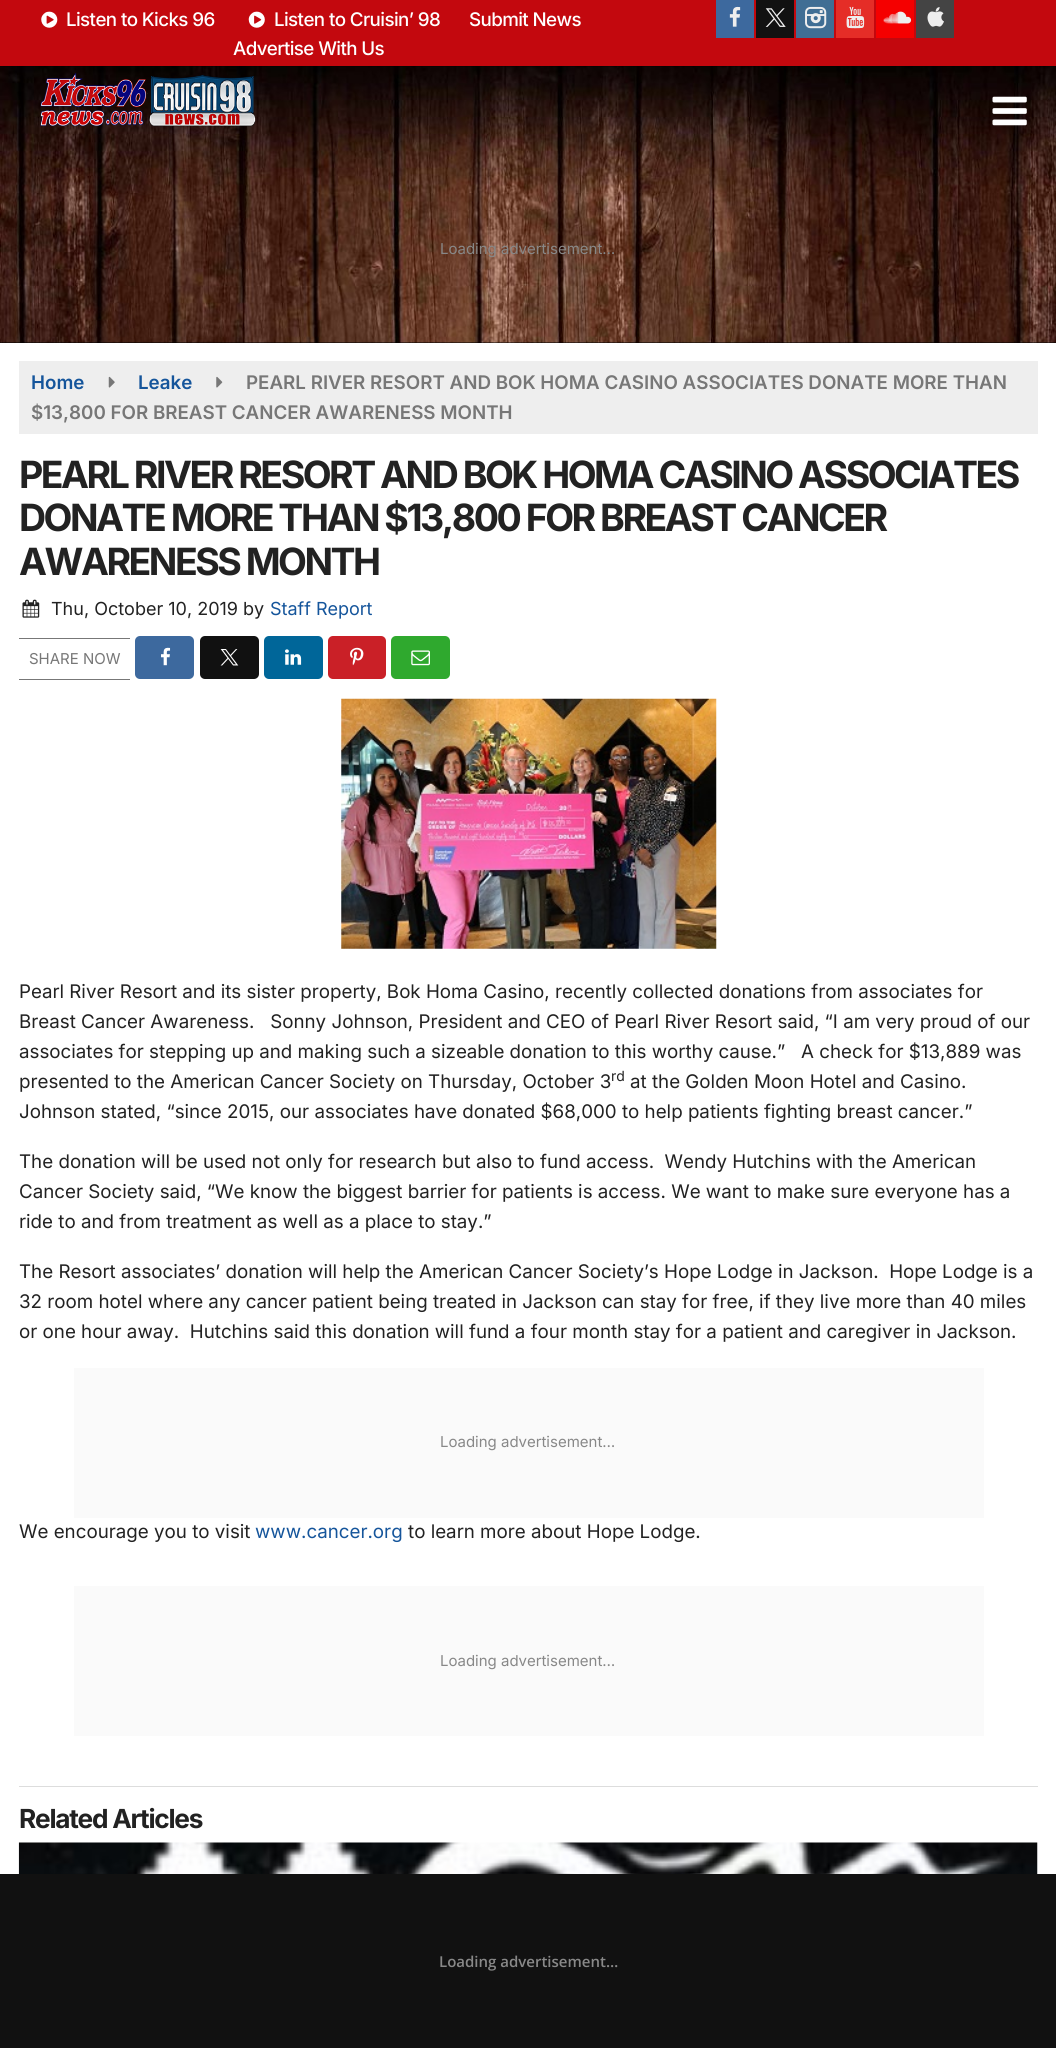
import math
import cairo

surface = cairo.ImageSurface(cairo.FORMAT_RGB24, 1056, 2048)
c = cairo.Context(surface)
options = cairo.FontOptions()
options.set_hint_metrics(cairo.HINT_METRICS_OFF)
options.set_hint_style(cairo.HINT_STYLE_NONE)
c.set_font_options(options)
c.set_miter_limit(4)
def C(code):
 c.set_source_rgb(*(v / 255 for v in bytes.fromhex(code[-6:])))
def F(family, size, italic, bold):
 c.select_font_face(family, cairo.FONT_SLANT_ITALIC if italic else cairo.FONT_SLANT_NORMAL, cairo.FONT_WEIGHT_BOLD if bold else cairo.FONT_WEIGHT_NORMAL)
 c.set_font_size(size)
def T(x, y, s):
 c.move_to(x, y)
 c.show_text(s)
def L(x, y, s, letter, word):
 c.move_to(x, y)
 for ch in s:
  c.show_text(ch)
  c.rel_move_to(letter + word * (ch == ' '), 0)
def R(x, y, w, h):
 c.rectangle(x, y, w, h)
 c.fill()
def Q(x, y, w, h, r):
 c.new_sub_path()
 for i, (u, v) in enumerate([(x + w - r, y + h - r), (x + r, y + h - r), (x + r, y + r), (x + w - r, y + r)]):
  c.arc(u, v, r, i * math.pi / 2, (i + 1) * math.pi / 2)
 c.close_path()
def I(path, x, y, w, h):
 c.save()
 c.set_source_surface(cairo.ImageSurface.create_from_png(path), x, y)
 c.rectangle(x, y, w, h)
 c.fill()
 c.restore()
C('ffffff')
c.paint()
C('c3080e')
R(0,0,1056,66)
I('1.png',41,11,17,17)
F('Inter Medium',18.75,0,0)
C('ffffff')
L(66,26,'Listen to Kicks 96',-.6,0)
I('2.png',248,11,17,17)
L(274,26,'Listen to Cruisin’ 98',-.6,0)
L(469,26,'Submit News',-.6,0)
L(233,55,'Advertise With Us',-.6,0)
C('3d699e')
R(716,0,38,38)
I('3.png',729,6,12,21)
C('111111')
R(756,0,38,38)
I('4.png',765,8,21,19)
C('406e94')
R(796,0,38,38)
I('5.png',805,6,22,23)
C('e52d27')
R(836,0,38,38)
I('6.png',846,6,19,23)
C('f50000')
R(876,0,38,38)
I('7.png',883,11,29,13)
C('444444')
R(916,0,38,38)
I('8.png',927,7,17,20)
C('000000')
R(0,66,1056,277)
I('9.png',0,66,1056,277)
I('10.png',40,73,216,54)
I('11.png',992,96,35,30)
F('Inter',15,0,0)
C('888888')
T(440,254,'Loading advertisement…')
C('eeeeee')
R(19,361,1019,73)
F('Inter SemiBold',18.75,0,0)
C('15559b')
T(31,389,'Home')
I('12.png',108,376,7,12)
T(138,389,'Leake')
I('13.png',216,376,7,12)
C('777777')
T(246,389,'PEARL RIVER RESORT AND BOK HOMA CASINO ASSOCIATES DONATE MORE THAN')
T(31,419,'$13,800 FOR BREAST CANCER AWARENESS MONTH')
F('Inter',37.5,0,1)
C('222222')
L(19,488,'PEARL RIVER RESORT AND BOK HOMA CASINO ASSOCIATES',-2.5,0)
L(19,531,'DONATE MORE THAN $13,800 FOR BREAST CANCER',-2.5,0)
L(19,575,'AWARENESS MONTH',-2.5,0)
I('14.png',22,599,18,19)
F('Inter',18,0,0)
T(51,615,'Thu, October 10, 2019 by')
C('15559b')
T(270,615,'Staff Report')
C('777777')
R(19,638,111,1)
R(19,679,111,1)
F('Inter',15,0,0)
T(29,664,'SHARE NOW')
C('3d699e')
Q(135,636,59,43,5)
c.fill()
I('15.png',161,647,10,19)
C('111111')
Q(200,636,59,43,5)
c.fill()
I('16.png',220,649,19,17)
C('006699')
Q(264,636,59,43,5)
c.fill()
I('17.png',285,649,17,16)
C('ca2027')
Q(328,636,58,43,5)
c.fill()
I('18.png',350,647,14,19)
C('2fa92e')
Q(391,636,59,43,5)
c.fill()
I('19.png',411,650,19,16)
I('20.png',341,698,376,251)
F('Inter',18.75,0,0)
C('222222')
T(19,998,'Pearl River Resort and its sister property, Bok Homa Casino, recently collected donations from associates for')
T(19,1028,'Breast Cancer Awareness.   Sonny Johnson, President and CEO of Pearl River Resort said, “I am very proud of our')
T(19,1058,'associates for stepping up and making such a sizeable donation to this worthy cause.”   A check for $13,889 was')
T(19,1088,'presented to the American Cancer Society on Thursday, October 3')
F('Inter',14,0,0)
T(611,1081,'rd')
F('Inter',18.75,0,0)
T(630,1088,'at the Golden Moon Hotel and Casino.')
T(19,1118,'Johnson stated, “since 2015, our associates have donated $68,000 to help patients fighting breast cancer.”')
T(19,1168,'The donation will be used not only for research but also to fund access.  Wendy Hutchins with the American')
T(19,1198,'Cancer Society said, “We know the biggest barrier for patients is access. We want to make sure everyone has a')
T(19,1228,'ride to and from treatment as well as a place to stay.”')
T(19,1278,'The Resort associates’ donation will help the American Cancer Society’s Hope Lodge in Jackson.  Hope Lodge is a')
T(19,1308,'32 room hotel where any cancer patient being treated in Jackson can stay for free, if they live more than 40 miles')
T(19,1338,'or one hour away.  Hutchins said this donation will fund a four month stay for a patient and caregiver in Jackson.')
C('fafafa')
R(74,1368,910,150)
F('Inter',15,0,0)
C('888888')
T(440,1447,'Loading advertisement…')
F('Inter',18.75,0,0)
C('222222')
T(19,1538,'We encourage you to visit')
C('15559b')
T(255,1538,'www.cancer.org')
C('222222')
T(408,1538,'to learn more about Hope Lodge.')
C('fafafa')
R(74,1586,910,150)
F('Inter',15,0,0)
C('888888')
T(440,1666,'Loading advertisement…')
C('dddddd')
R(19,1786,1019,1)
F('Inter',26.25,0,1)
C('222222')
L(19,1828,'Related Articles',-1.25,0)
I('21.png',18,1842,1020,32)
C('111111')
R(0,1874,1056,174)
F('Open Sans SemiBold',15,0,0)
C('888888')
T(439,1967,'Loading advertisement…')
surface.write_to_png('o.png')
